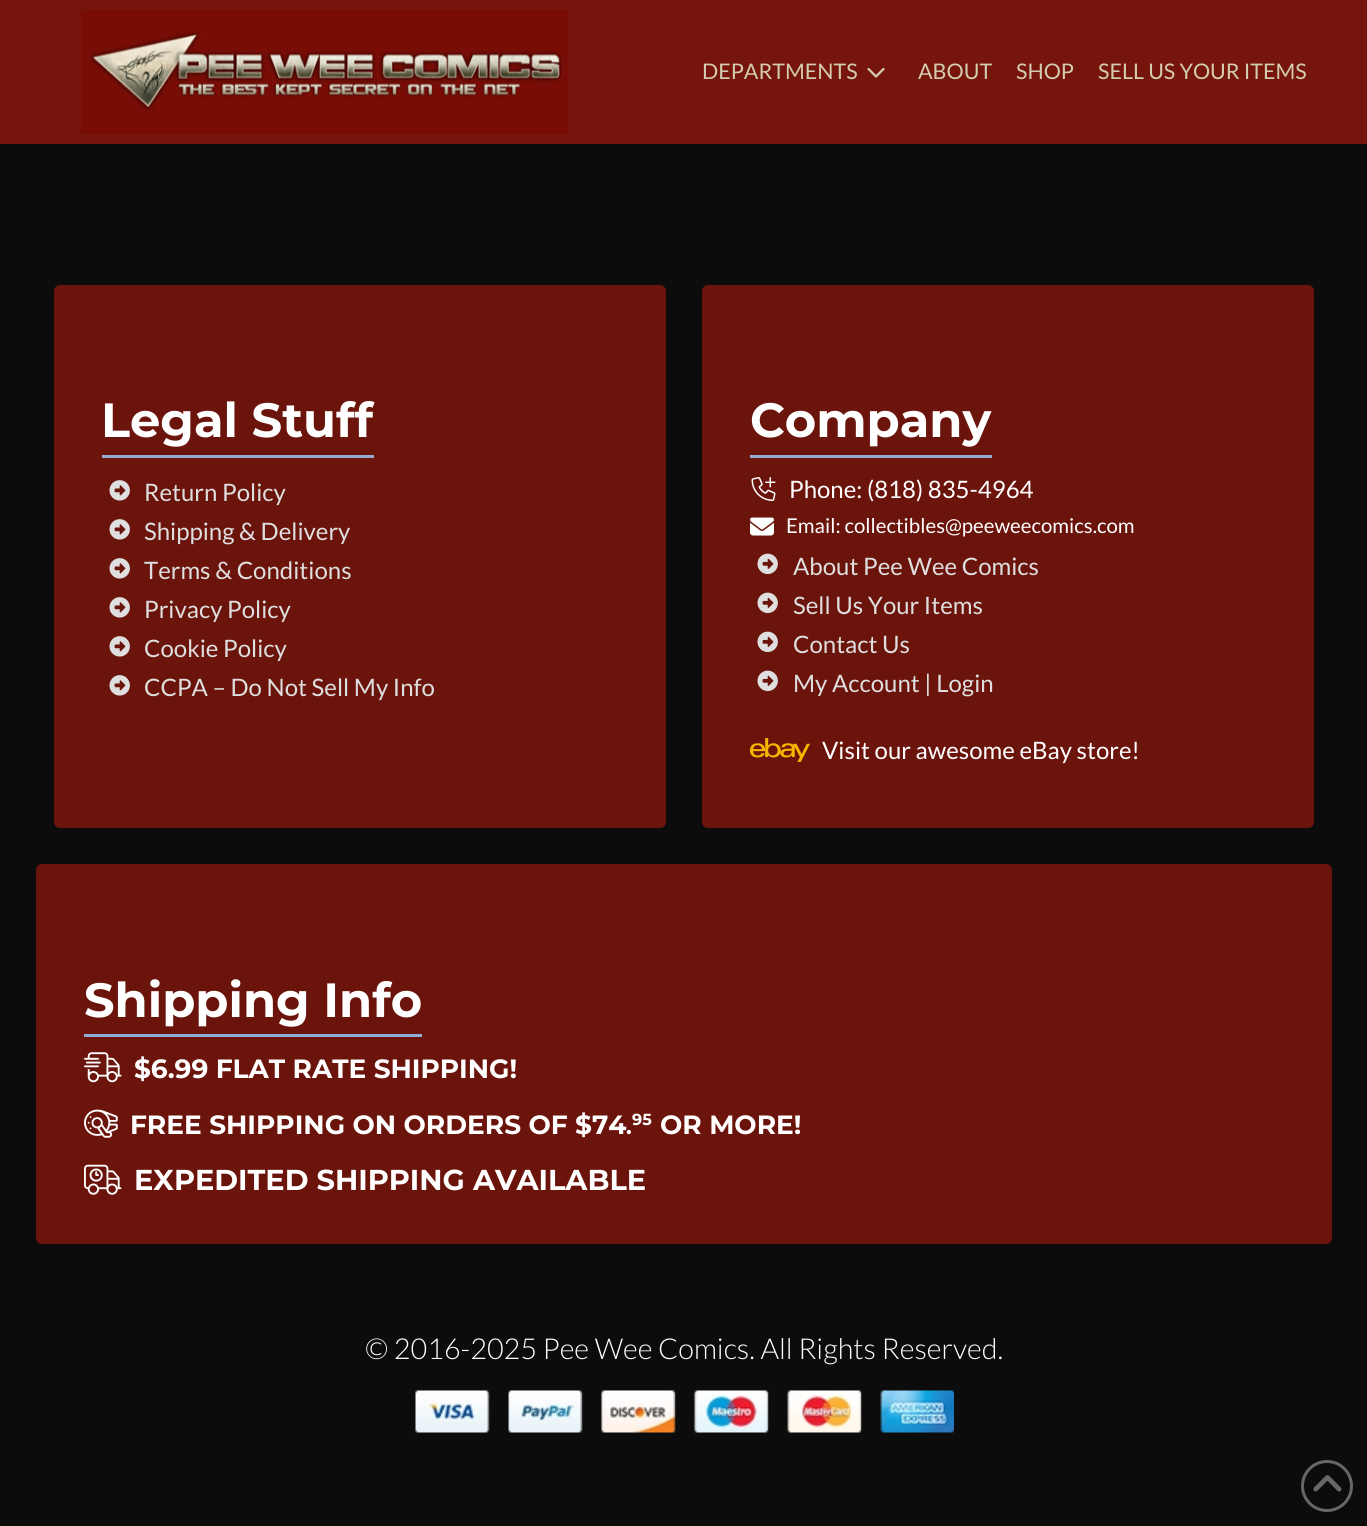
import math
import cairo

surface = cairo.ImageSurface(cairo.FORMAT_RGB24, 1367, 1526)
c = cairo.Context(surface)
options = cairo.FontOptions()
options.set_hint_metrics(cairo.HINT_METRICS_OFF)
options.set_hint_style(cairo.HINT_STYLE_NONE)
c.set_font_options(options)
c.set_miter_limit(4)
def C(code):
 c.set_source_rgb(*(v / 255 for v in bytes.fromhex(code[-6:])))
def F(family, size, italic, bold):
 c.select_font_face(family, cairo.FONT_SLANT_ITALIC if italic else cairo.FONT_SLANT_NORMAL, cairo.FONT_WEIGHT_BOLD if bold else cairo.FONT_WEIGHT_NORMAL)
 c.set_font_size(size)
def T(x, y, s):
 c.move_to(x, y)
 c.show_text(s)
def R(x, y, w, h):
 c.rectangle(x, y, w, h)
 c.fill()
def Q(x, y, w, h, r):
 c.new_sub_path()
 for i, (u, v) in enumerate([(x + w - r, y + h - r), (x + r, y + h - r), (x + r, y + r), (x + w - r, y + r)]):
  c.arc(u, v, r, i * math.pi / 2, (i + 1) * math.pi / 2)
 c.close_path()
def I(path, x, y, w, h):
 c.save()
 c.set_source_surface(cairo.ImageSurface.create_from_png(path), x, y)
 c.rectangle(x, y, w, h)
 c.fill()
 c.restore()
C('0c0c0c')
c.paint()
C('76150b')
R(0,0,1367,144)
I('1.png',81,10,488,124)
F('Lato',21.5,0,0)
C('d4ccb0')
T(702,79,'DEPARTMENTS')
I('2.png',867,67,18,11)
T(918,79,'ABOUT')
T(1016,79,'SHOP')
T(1098,79,'SELL US YOUR ITEMS')
C('6b140b')
Q(54,285,612,543,6)
c.fill()
C('91add5')
R(102,455,272,3)
F('Montserrat',48,0,1)
C('ffffff')
T(101,437,'Legal Stuff')
I('3.png',109,480,21,21)
F('Lato',24,0,0)
C('dfdfdf')
T(144,501,'Return Policy')
I('3.png',109,519,21,21)
T(144,540,'Shipping & Delivery')
I('3.png',109,558,21,21)
T(144,579,'Terms & Conditions')
I('3.png',109,597,21,21)
T(144,618,'Privacy Policy')
I('3.png',109,636,21,21)
T(144,657,'Cookie Policy')
I('3.png',109,675,21,21)
T(144,696,'CCPA – Do Not Sell My Info')
C('6b140b')
Q(702,285,612,543,6)
c.fill()
C('91add5')
R(750,455,242,3)
F('Montserrat',48,0,1)
C('ffffff')
T(750,437,'Company')
I('4.png',751,477,25,24)
F('Lato',24,0,0)
T(789,498,'Phone: (818) 835-4964')
I('5.png',750,517,24,19)
F('Lato',20.4,0,0)
T(786,533,'Email: collectibles@peeweecomics.com')
I('6.png',757,553,21,22)
F('Lato',24,0,0)
C('dfdfdf')
T(793,575,'About Pee Wee Comics')
I('6.png',757,592,21,22)
T(793,614,'Sell Us Your Items')
I('6.png',757,631,21,22)
T(793,653,'Contact Us')
I('6.png',757,670,21,22)
T(793,692,'My Account | Login')
I('7.png',750,738,60,24)
C('ffffff')
T(822,759,'Visit our awesome eBay store!')
C('6b140b')
Q(36,864,1296,380,6)
c.fill()
C('91add5')
R(84,1034,338,3)
F('Montserrat',48,0,1)
C('ffffff')
T(84,1017,'Shipping Info')
I('8.png',84,1052,38,31)
F('Montserrat',26.4,0,1)
T(134,1078,'$6.99 FLAT RATE SHIPPING!')
I('9.png',84,1109,34,29)
T(130,1134,'FREE SHIPPING ON ORDERS OF $74')
F('Montserrat',22,0,1)
T(626,1134,'.')
F('Montserrat',16,0,1)
T(632,1125,'95')
F('Montserrat',26.4,0,1)
T(660,1134,'OR MORE!')
I('10.png',84,1164,38,31)
F('Montserrat',28.8,0,1)
T(134,1190,'EXPEDITED SHIPPING AVAILABLE')
F('Lato Light',28.8,0,0)
T(365,1359,'© 2016-2025 Pee Wee Comics. All Rights Reserved.')
I('11.png',415,1390,539,43)
c.arc(1327,1486,24.5,0,2 * math.pi)
C('676767')
c.set_line_width(3)
c.stroke()
I('12.png',1313,1475,29,17)
surface.write_to_png('o.png')
